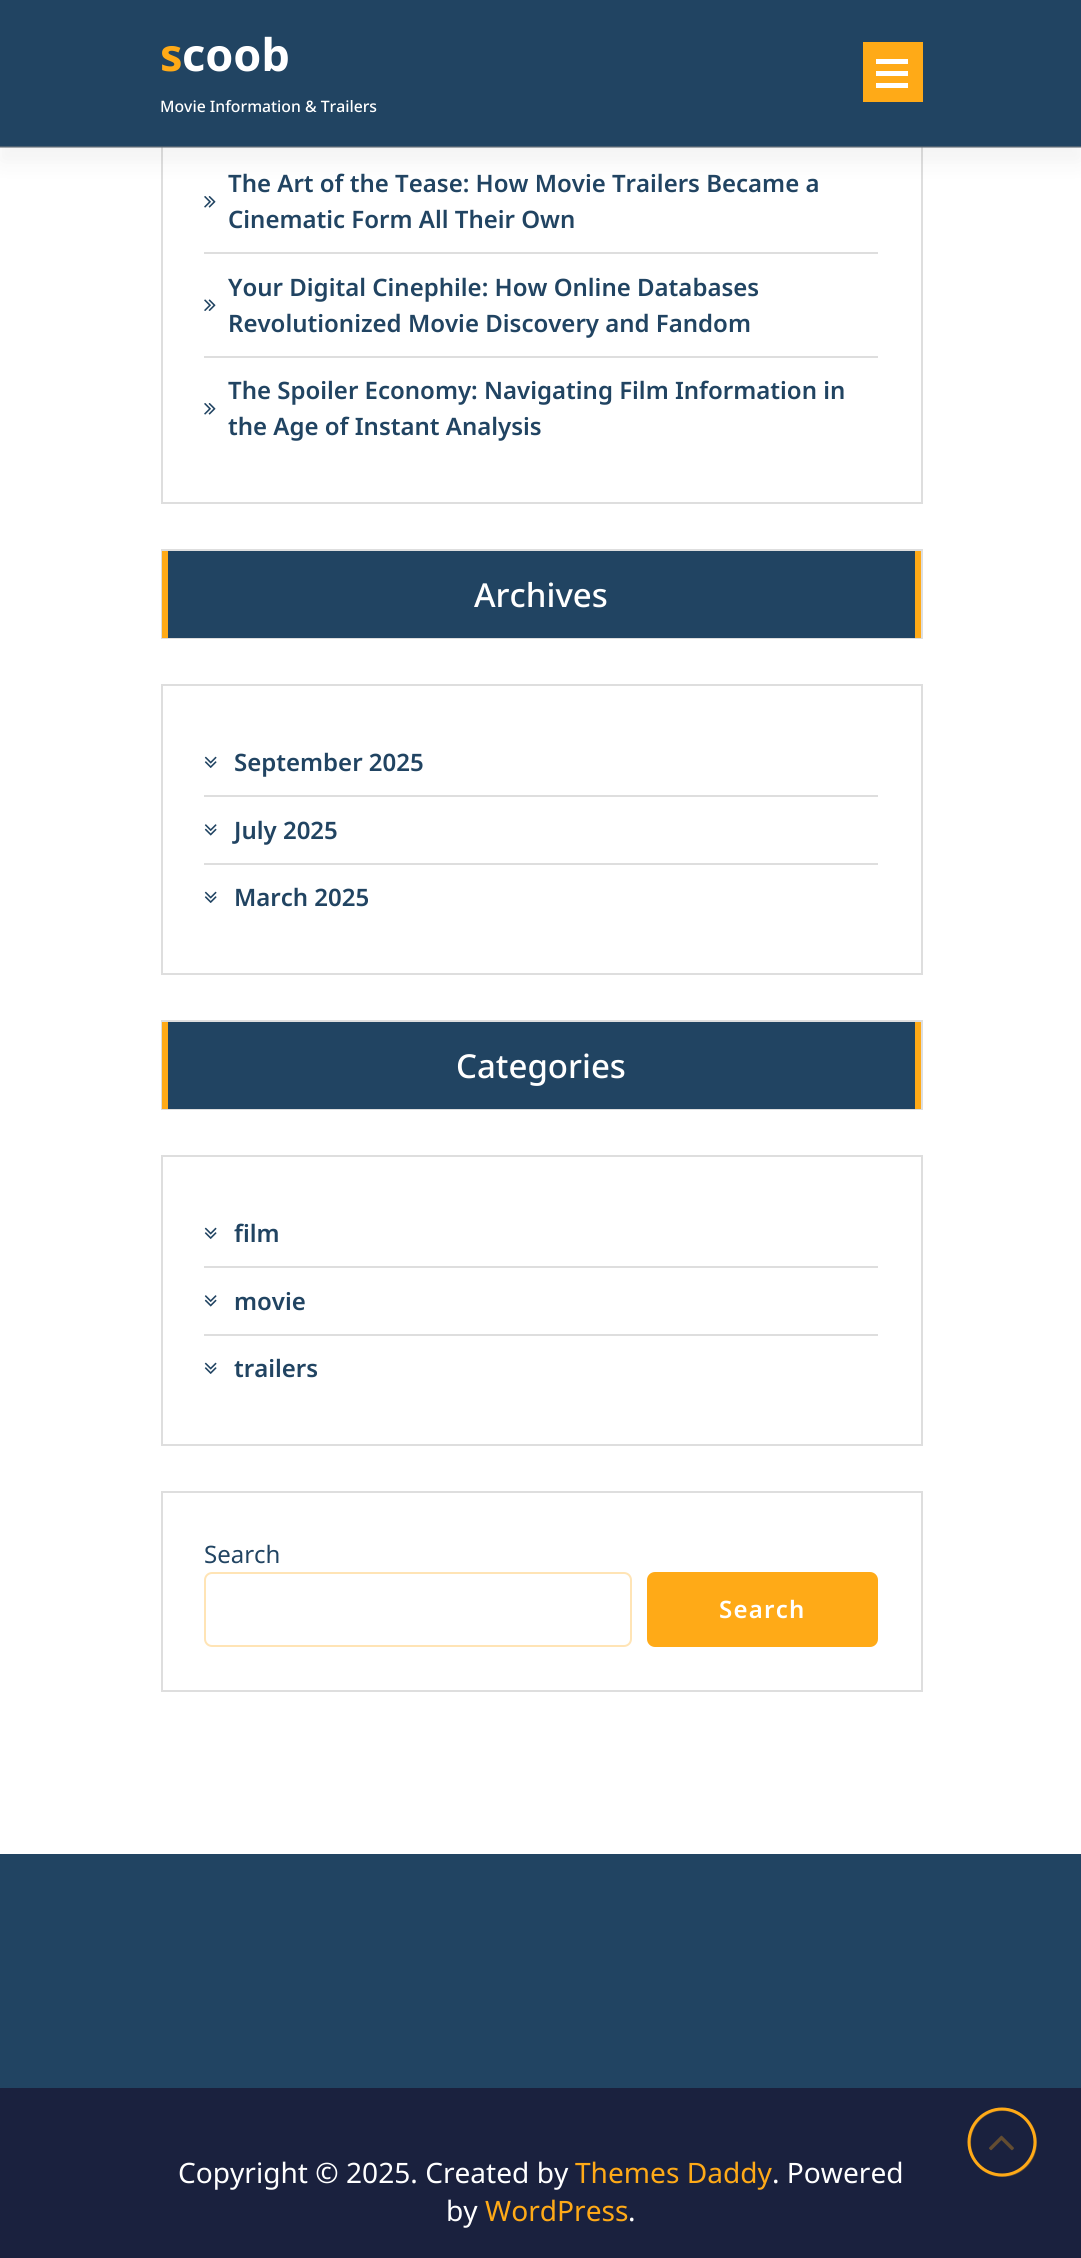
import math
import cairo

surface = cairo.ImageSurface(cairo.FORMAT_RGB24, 1081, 2258)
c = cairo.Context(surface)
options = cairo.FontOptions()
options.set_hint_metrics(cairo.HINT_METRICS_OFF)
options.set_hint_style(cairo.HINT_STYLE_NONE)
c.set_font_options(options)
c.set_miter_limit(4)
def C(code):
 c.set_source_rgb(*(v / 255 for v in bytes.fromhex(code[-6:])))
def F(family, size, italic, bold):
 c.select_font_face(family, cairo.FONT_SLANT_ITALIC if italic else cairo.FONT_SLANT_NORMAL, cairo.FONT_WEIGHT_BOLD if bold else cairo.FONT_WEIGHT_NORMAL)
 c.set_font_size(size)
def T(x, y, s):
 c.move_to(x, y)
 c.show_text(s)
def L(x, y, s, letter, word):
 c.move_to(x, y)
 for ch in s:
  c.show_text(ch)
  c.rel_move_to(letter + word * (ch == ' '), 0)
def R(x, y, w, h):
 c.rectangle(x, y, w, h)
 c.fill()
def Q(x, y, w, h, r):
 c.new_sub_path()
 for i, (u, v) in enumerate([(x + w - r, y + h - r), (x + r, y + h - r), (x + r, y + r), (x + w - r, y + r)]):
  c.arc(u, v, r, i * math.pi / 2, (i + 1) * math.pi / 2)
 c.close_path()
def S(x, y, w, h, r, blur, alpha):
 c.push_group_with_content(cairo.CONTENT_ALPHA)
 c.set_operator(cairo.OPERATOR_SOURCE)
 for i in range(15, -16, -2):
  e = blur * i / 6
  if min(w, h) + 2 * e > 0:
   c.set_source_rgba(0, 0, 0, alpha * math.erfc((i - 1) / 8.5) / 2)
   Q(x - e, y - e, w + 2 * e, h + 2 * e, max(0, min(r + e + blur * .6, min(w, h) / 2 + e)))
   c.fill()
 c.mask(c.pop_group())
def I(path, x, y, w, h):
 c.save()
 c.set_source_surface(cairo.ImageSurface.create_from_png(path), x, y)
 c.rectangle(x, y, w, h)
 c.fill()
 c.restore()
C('ffffff')
c.paint()
c.rectangle(162,106,760,397)
C('dedede')
c.stroke()
C('000000')
S(0,14,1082,148,0,11,.05)
C('214462')
R(0,0,1081,147)
c.set_source_rgba(0.424,0.459,0.49,0.6)
R(0,146,1081,2)
F('Noto Sans',45,0,1)
C('ffaa17')
T(160,71,'s')
C('ffffff')
T(182,71,'coob')
F('Noto Sans Medium',15.75,0,0)
T(160,112,'Movie Information & Trailers')
C('ffaa17')
R(863,42,60,60)
C('ffffff')
R(876,59,32,5)
R(876,71,32,5)
R(876,83,32,5)
C('dedede')
R(204,252,674,2)
I('1.png',204,196,12,12)
F('Noto Sans SemiBold',24,0,0)
C('214462')
T(228,192,'The Art of the Tease: How Movie Trailers Became a')
T(228,228,'Cinematic Form All Their Own')
C('dedede')
R(204,356,674,2)
I('2.png',204,299,12,12)
C('214462')
T(228,296,'Your Digital Cinephile: How Online Databases')
T(228,332,'Revolutionized Movie Discovery and Fandom')
I('1.png',204,403,12,12)
T(228,399,'The Spoiler Economy: Navigating Film Information in')
T(228,435,'the Age of Instant Analysis')
c.rectangle(162,550,760,88)
C('dedede')
c.stroke()
C('214462')
R(168,551,747,87)
C('ffaa17')
R(915,551,6,87)
R(162,551,6,87)
F('Noto Sans Medium',33,0,0)
C('ffffff')
T(474,607,'Archives')
c.rectangle(162,685,760,289)
C('dedede')
c.stroke()
R(204,795,674,2)
I('3.png',204,756,13,12)
F('Noto Sans SemiBold',24,0,0)
C('214462')
T(234,771,'September 2025')
C('dedede')
R(204,863,674,2)
I('4.png',204,824,13,12)
C('214462')
T(234,839,'July 2025')
I('3.png',204,891,13,12)
T(234,906,'March 2025')
c.rectangle(162,1021,760,88)
C('dedede')
c.stroke()
C('214462')
R(168,1022,747,87)
C('ffaa17')
R(915,1022,6,87)
R(162,1022,6,87)
F('Noto Sans Medium',33,0,0)
C('ffffff')
T(456,1078,'Categories')
c.rectangle(162,1156,760,289)
C('dedede')
c.stroke()
R(204,1266,674,2)
I('5.png',204,1227,13,12)
F('Noto Sans SemiBold',24,0,0)
C('214462')
T(234,1242,'film')
C('dedede')
R(204,1334,674,2)
I('6.png',204,1295,13,12)
C('214462')
T(234,1310,'movie')
I('5.png',204,1362,13,12)
T(234,1377,'trailers')
c.rectangle(162,1492,760,199)
C('dedede')
c.stroke()
F('Noto Sans',24,0,0)
C('214462')
T(204,1563,'Search')
Q(205,1573,426,73,7)
C('ffe4b5')
c.stroke()
C('ffaa17')
Q(647,1572,231,75,8)
c.fill()
F('Noto Sans SemiBold',24,0,0)
C('ffffff')
L(719,1618,'Search',1.25,0)
C('1a213e')
R(0,2088,1081,170)
c.new_path()
c.arc(1002.5,2142.5,33,0,2 * math.pi)
C('634d32')
c.set_line_width(3)
c.stroke()
I('7.png',989,2135,25,16)
c.save()
c.new_path()
c.move_to(967.5,2176.5)
c.line_to(967.5,2107.5)
c.line_to(1036.5,2107.5)
c.line_to(1036.5,2176.5)
c.close_path()
c.clip()
c.new_path()
c.move_to(969,2142)
c.curve_to(969,2124,984,2109,1002,2109)
c.curve_to(1020,2109,1035,2124,1035,2142)
c.curve_to(1035,2160,1020,2175,1002,2175)
c.curve_to(984,2175,969,2160,969,2142)
C('ffaa17')
c.stroke()
c.restore()
C('214462')
R(0,1854,1081,234)
F('Noto Sans',28.1,0,0)
C('ffffff')
T(178,2183,'Copyright © 2025. Created by')
C('ffaa17')
T(575,2183,'Themes Daddy')
C('ffffff')
T(772,2183,'. Powered')
T(446,2221,'by')
C('ffaa17')
T(485,2221,'WordPress')
C('ffffff')
T(628,2221,'.')
surface.write_to_png('o.png')
